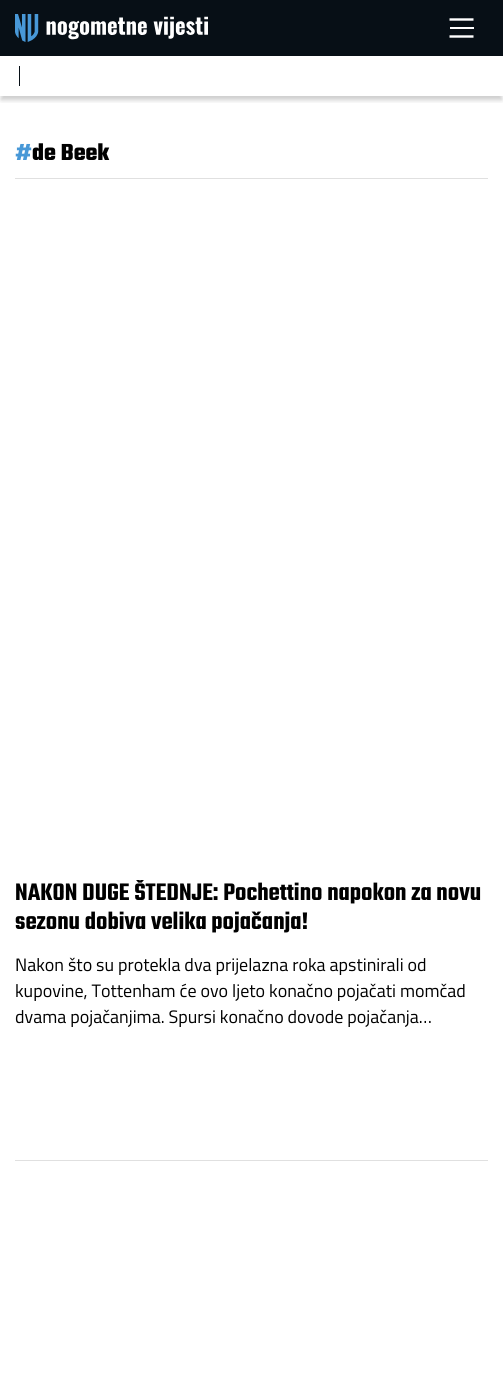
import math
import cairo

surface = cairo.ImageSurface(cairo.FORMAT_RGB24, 503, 1390)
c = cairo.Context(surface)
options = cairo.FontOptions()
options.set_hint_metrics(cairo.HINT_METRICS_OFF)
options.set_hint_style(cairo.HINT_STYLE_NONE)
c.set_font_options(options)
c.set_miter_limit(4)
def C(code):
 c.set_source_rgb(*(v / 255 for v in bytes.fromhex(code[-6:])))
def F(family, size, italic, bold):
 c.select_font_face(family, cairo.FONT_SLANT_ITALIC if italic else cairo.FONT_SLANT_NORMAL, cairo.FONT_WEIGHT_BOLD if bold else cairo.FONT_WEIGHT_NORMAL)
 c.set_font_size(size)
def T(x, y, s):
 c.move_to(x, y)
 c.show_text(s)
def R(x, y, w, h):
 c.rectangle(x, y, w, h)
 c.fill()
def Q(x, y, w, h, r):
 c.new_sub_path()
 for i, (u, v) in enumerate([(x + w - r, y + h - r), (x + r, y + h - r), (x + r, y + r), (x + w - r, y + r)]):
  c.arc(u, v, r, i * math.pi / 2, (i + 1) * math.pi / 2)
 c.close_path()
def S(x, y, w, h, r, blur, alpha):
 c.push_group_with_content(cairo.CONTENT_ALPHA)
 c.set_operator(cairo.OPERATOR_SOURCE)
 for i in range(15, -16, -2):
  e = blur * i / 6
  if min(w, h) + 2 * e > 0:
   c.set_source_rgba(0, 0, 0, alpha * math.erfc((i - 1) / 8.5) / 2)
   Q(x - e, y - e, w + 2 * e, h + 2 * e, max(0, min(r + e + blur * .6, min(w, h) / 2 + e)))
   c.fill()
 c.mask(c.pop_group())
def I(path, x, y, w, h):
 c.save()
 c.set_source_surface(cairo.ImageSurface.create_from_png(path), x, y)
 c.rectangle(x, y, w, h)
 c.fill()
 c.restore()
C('ffffff')
c.paint()
C('070f16')
R(0,0,503,56)
I('1.png',15,14,193,28)
c.new_path()
c.move_to(449.5,19.5)
c.line_to(473.5,19.5)
C('ffffff')
c.set_line_width(2.4)
c.stroke()
R(450,27,24,2)
c.new_path()
c.move_to(449.5,36.5)
c.line_to(473.5,36.5)
c.stroke()
c.save()
c.rectangle(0,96,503,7)
c.clip()
C('000000')
S(1,62,501,38,0,2.5,.2)
c.restore()
C('070f16')
R(19,66,1,20)
C('e0e0e0')
R(15,178,473,1)
F('Teko',25,0,1)
C('4898d7')
T(15,160,'#')
C('000000')
T(32,160,'de Beek')
c.save()
c.rectangle(15,880,473,57)
c.clip()
F('Teko SemiBold',26,0,0)
T(15,900,'NAKON DUGE ŠTEDNJE: Pochettino napokon za novu')
c.restore()
F('Teko SemiBold',26,0,0)
T(15,929,'sezonu dobiva velika pojačanja!')
F('Titillium Web',18,0,0)
T(15,971,'Nakon što su protekla dva prijelazna roka apstinirali od')
T(15,997,'kupovine, Tottenham će ovo ljeto konačno pojačati momčad')
T(15,1023,'dvama pojačanjima. Spursi konačno dovode pojačanja…')
C('e0e0e0')
R(15,1160,473,1)
surface.write_to_png('o.png')
